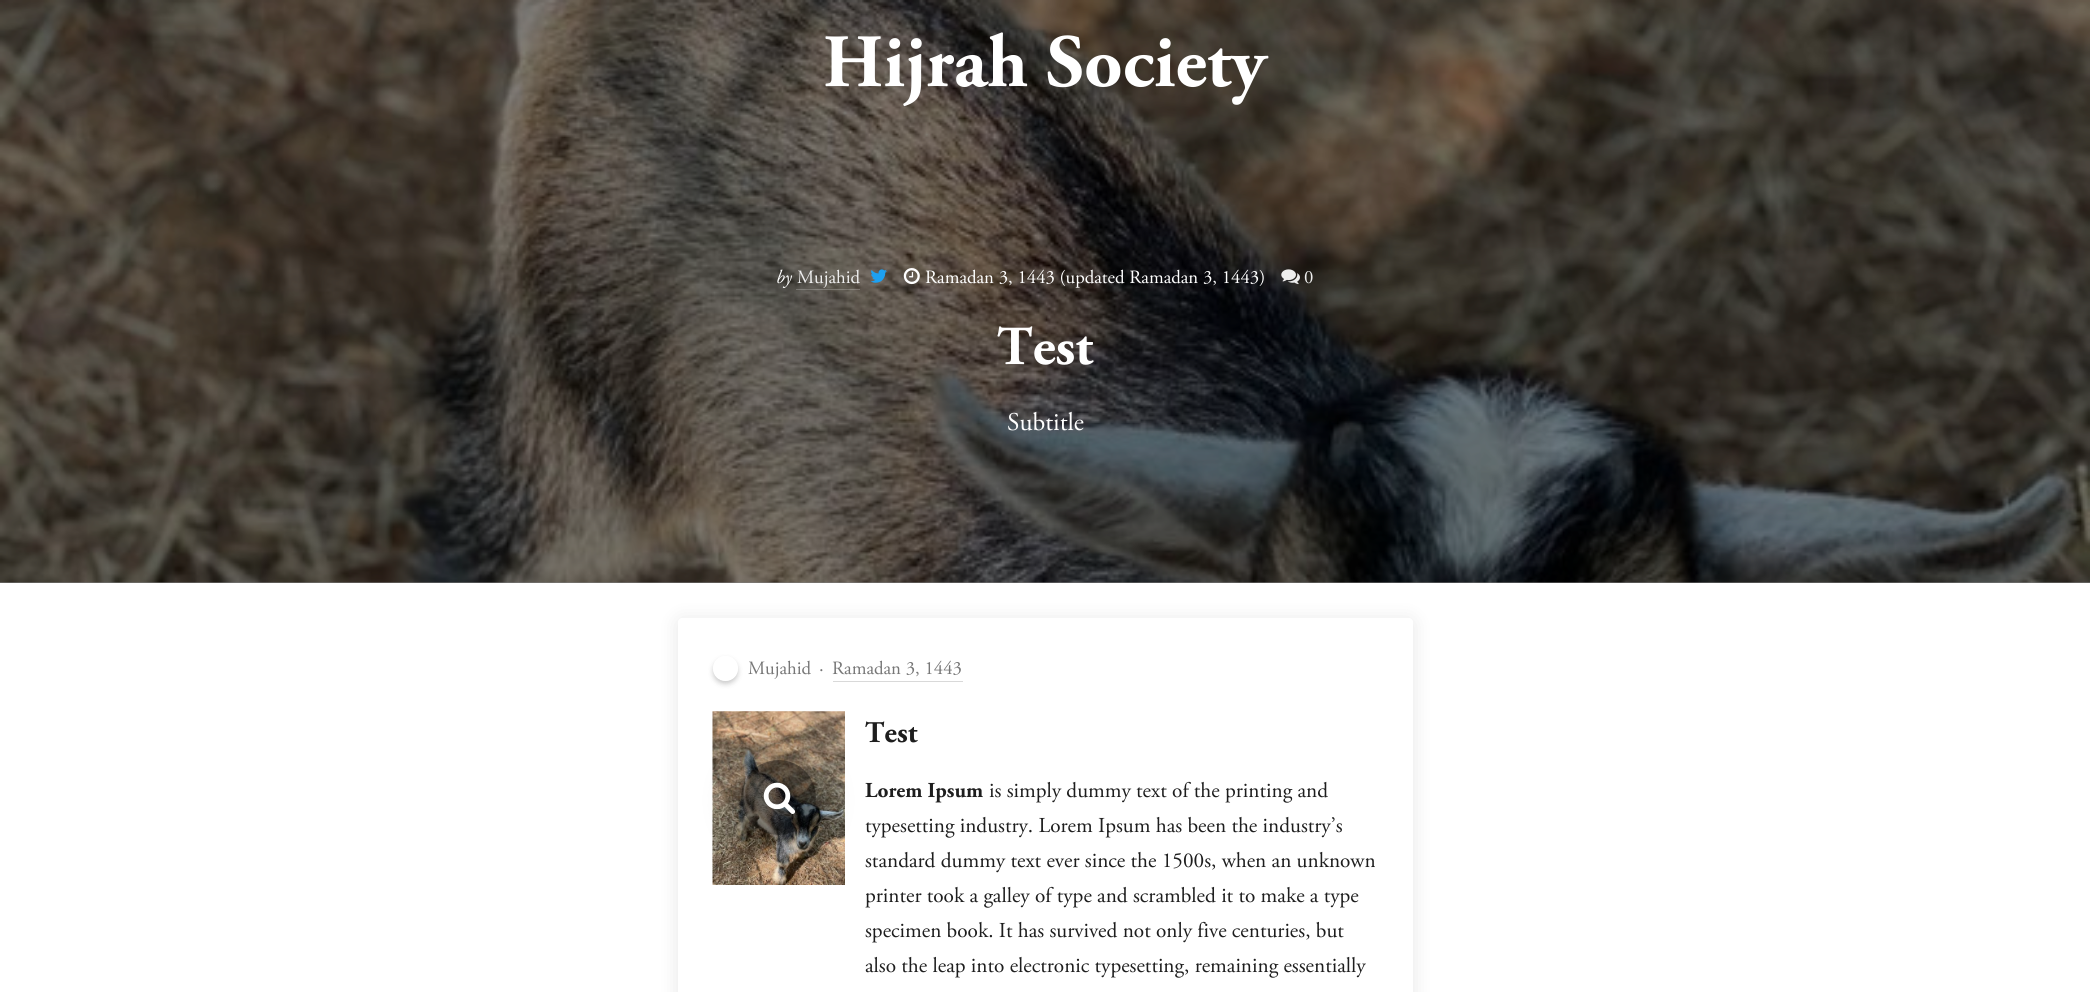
import math
import cairo

surface = cairo.ImageSurface(cairo.FORMAT_RGB24, 2090, 992)
c = cairo.Context(surface)
options = cairo.FontOptions()
options.set_hint_metrics(cairo.HINT_METRICS_OFF)
options.set_hint_style(cairo.HINT_STYLE_NONE)
c.set_font_options(options)
c.set_miter_limit(4)
def C(code):
 c.set_source_rgb(*(v / 255 for v in bytes.fromhex(code[-6:])))
def F(family, size, italic, bold):
 c.select_font_face(family, cairo.FONT_SLANT_ITALIC if italic else cairo.FONT_SLANT_NORMAL, cairo.FONT_WEIGHT_BOLD if bold else cairo.FONT_WEIGHT_NORMAL)
 c.set_font_size(size)
def T(x, y, s):
 c.move_to(x, y)
 c.show_text(s)
def R(x, y, w, h):
 c.rectangle(x, y, w, h)
 c.fill()
def Q(x, y, w, h, r):
 c.new_sub_path()
 for i, (u, v) in enumerate([(x + w - r, y + h - r), (x + r, y + h - r), (x + r, y + r), (x + w - r, y + r)]):
  c.arc(u, v, r, i * math.pi / 2, (i + 1) * math.pi / 2)
 c.close_path()
def S(x, y, w, h, r, blur, alpha):
 c.push_group_with_content(cairo.CONTENT_ALPHA)
 c.set_operator(cairo.OPERATOR_SOURCE)
 for i in range(15, -16, -2):
  e = blur * i / 6
  if min(w, h) + 2 * e > 0:
   c.set_source_rgba(0, 0, 0, alpha * math.erfc((i - 1) / 8.5) / 2)
   Q(x - e, y - e, w + 2 * e, h + 2 * e, max(0, min(r + e + blur * .6, min(w, h) / 2 + e)))
   c.fill()
 c.mask(c.pop_group())
def I(path, x, y, w, h):
 c.save()
 c.set_source_surface(cairo.ImageSurface.create_from_png(path), x, y)
 c.rectangle(x, y, w, h)
 c.fill()
 c.restore()
C('ffffff')
c.paint()
C('808080')
R(0,582,2090,1)
I('1.png',0,0,2090,583)
F('Adobe Garamond',75,0,1)
C('ffffff')
T(823,86,'Hijrah Society')
F('Adobe Garamond',18.75,1,0)
T(776,283,'by')
F('Adobe Garamond',18.75,0,0)
C('eeeeee')
T(797,283,'Mujahid')
c.set_source_rgba(1,1,1,0.2)
R(796,289,64,1)
I('2.png',870,269,17,14)
I('3.png',903,268,17,17)
C('ffffff')
T(925,283,'Ramadan 3, 1443 (updated Ramadan 3, 1443)')
I('4.png',1281,269,19,16)
C('eeeeee')
T(1304,283,'0')
F('Adobe Garamond',55,0,1)
C('ffffff')
T(997,364,'Test')
F('Adobe Garamond',25.5,0,0)
T(1007,430,'Subtitle')
C('000000')
S(678,620,735,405,4,9.5,.1)
C('ffffff')
Q(678,618,735,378,4)
c.fill()
c.save()
c.set_fill_rule(cairo.FILL_RULE_EVEN_ODD)
c.new_path()
c.move_to(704,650)
c.line_to(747,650)
c.line_to(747,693)
c.line_to(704,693)
c.close_path()
c.move_to(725.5,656)
c.curve_to(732.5,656,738,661.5,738,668.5)
c.curve_to(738,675.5,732.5,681,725.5,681)
c.curve_to(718.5,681,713,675.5,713,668.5)
c.curve_to(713,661.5,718.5,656,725.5,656)
c.close_path()
c.clip()
C('000000')
S(713,659,25,25,12.5,2.5,.2)
c.restore()
F('Adobe Garamond',18.75,0,0)
C('777777')
T(748,674,'Mujahid')
T(819,674,'·')
T(832,674,'Ramadan 3, 1443')
C('d9d9d9')
R(833,681,130,1)
I('5.png',712,711,133,174)
c.save()
c.set_fill_rule(cairo.FILL_RULE_EVEN_ODD)
c.new_path()
c.move_to(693,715)
c.line_to(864,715)
c.line_to(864,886)
c.line_to(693,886)
c.close_path()
c.move_to(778.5,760)
c.curve_to(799,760,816,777,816,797.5)
c.curve_to(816,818,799,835,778.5,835)
c.curve_to(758,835,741,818,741,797.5)
c.curve_to(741,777,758,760,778.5,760)
c.close_path()
c.clip()
C('000000')
S(741,763,75,75,37.5,15.5,.5)
c.restore()
c.set_source_rgba(0,0,0,0.5)
c.arc(778.5,797.5,37.5,0,2 * math.pi)
c.fill()
I('6.png',763,782,33,32)
F('Adobe Garamond',30,0,1)
C('1e1e1e')
T(865,742,'Test')
F('Adobe Garamond',21.25,0,1)
T(865,797,'Lorem Ipsum')
F('Adobe Garamond',21.25,0,0)
T(989,797,'is simply dummy text of the printing and')
T(865,832,'typesetting industry. Lorem Ipsum has been the industry’s')
T(865,867,'standard dummy text ever since the 1500s, when an unknown')
T(865,902,'printer took a galley of type and scrambled it to make a type')
T(865,937,'specimen book. It has survived not only five centuries, but')
T(865,972,'also the leap into electronic typesetting, remaining essentially')
surface.write_to_png('o.png')
